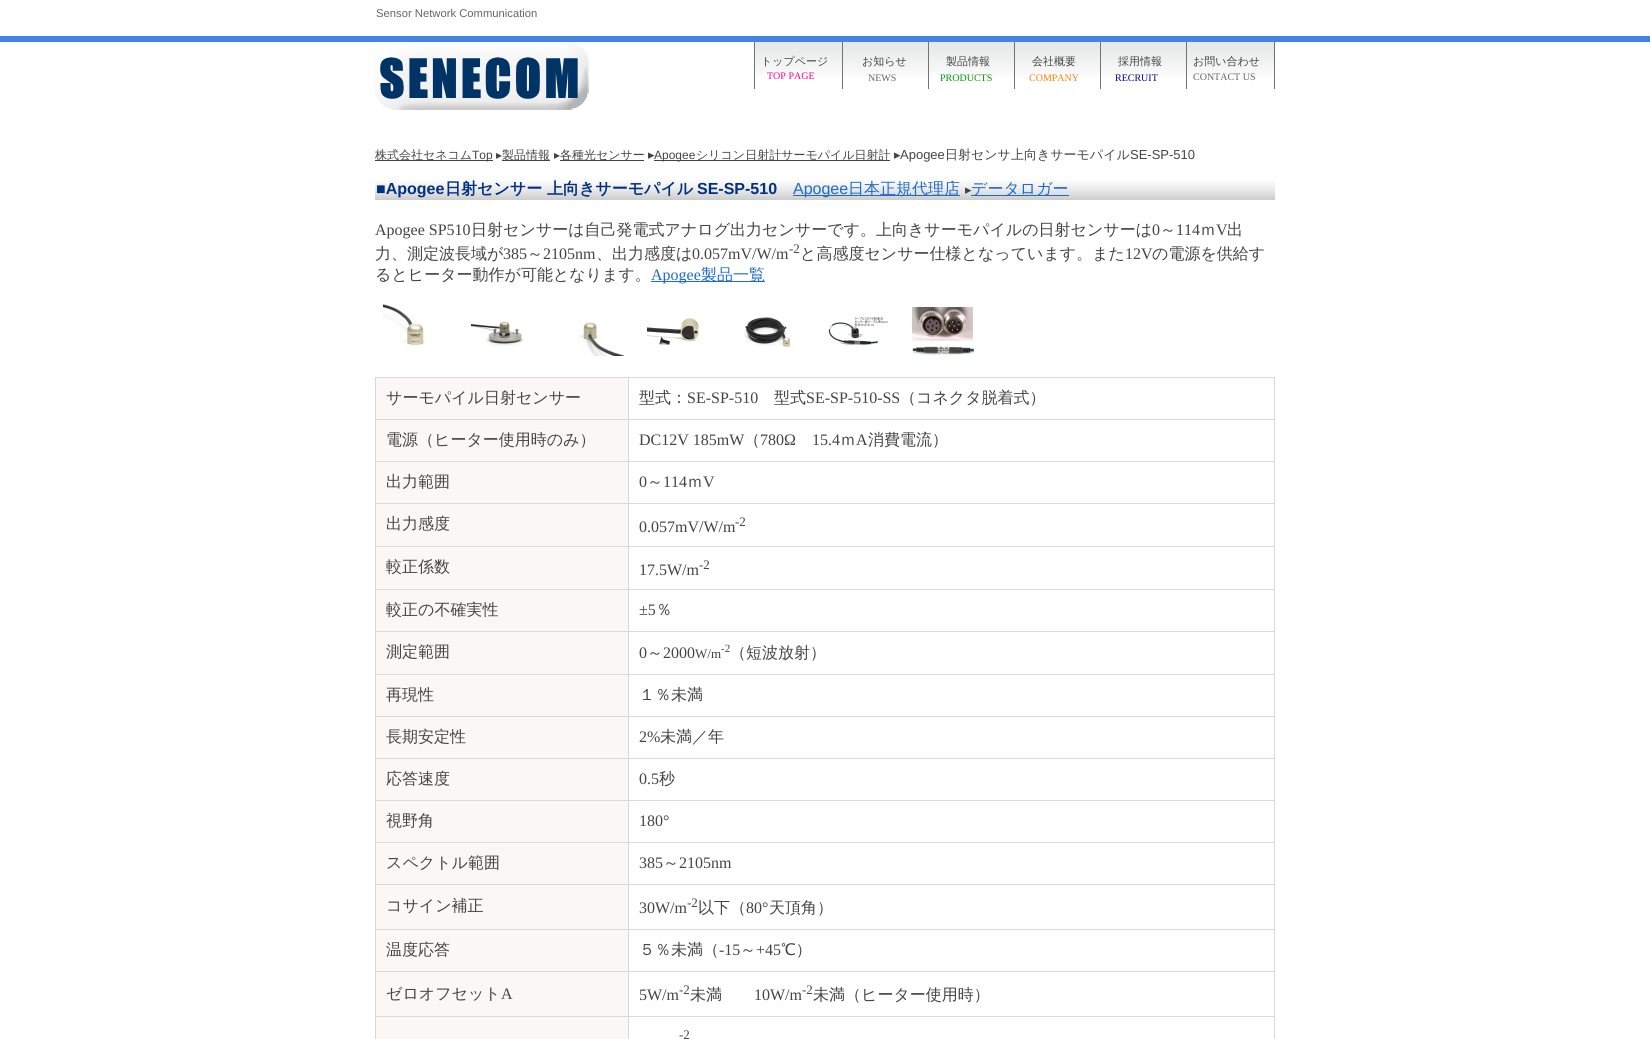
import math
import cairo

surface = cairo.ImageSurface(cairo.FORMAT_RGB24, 1650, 1039)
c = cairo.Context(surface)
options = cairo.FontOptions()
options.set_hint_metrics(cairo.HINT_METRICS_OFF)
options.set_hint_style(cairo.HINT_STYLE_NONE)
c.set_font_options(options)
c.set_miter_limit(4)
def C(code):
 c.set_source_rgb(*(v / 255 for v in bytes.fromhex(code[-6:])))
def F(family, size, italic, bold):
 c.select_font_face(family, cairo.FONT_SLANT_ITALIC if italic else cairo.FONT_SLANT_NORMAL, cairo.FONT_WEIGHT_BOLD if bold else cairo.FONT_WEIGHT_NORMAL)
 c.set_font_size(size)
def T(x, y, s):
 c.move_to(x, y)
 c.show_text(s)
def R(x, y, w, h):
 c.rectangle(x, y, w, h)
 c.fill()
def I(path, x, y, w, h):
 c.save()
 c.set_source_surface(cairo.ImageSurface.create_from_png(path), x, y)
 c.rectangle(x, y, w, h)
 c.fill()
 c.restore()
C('ffffff')
c.paint()
C('4184e2')
R(0,36,1650,6)
F('Liberation Sans',11.25,0,0)
C('666666')
T(376,17,'Sensor Network Communication')
I('1.png',375,42,214,68)
I('2.png',755,42,519,34)
C('737373')
R(1274,42,1,47)
R(754,42,1,47)
F('WenQuanYi Zen Hei Medium',11,0,0)
C('444444')
T(761,65,'トップページ')
F('Liberation Serif',10,0,0)
C('ff0088')
T(767,79,'TOP PAGE')
C('737373')
R(842,42,1,47)
F('WenQuanYi Zen Hei Medium',11,0,0)
C('444444')
T(862,65,'お知らせ')
F('Liberation Serif',10,0,0)
C('666666')
T(868,81,'NEWS')
C('737373')
R(928,42,1,47)
F('WenQuanYi Zen Hei Medium',11,0,0)
C('444444')
T(946,65,'製品情報')
F('Liberation Serif',10,0,0)
C('009900')
T(940,81,'PRODUCTS')
C('737373')
R(1014,42,1,47)
F('WenQuanYi Zen Hei Medium',11,0,0)
C('444444')
T(1032,65,'会社概要')
F('Liberation Serif',10,0,0)
C('ff8000')
T(1029,81,'COMPANY')
C('737373')
R(1100,42,1,47)
F('WenQuanYi Zen Hei Medium',11,0,0)
C('444444')
T(1118,65,'採用情報')
F('Liberation Serif',10,0,0)
C('000099')
T(1115,81,'RECRUIT')
C('737373')
R(1186,42,1,47)
F('WenQuanYi Zen Hei Medium',11,0,0)
C('444444')
T(1193,65,'お問い合わせ')
F('Liberation Serif',10,0,0)
C('666666')
T(1193,80,'CONTACT US')
C('444444')
R(375,160,118,1)
F('WenQuanYi Zen Hei Medium',12,0,0)
T(375,159,'株式会社セネコム')
F('Liberation Sans',12,0,0)
T(472,159,'Top')
F('DejaVu Sans',12,0,0)
T(496,159,'▸')
R(502,160,48,1)
F('WenQuanYi Zen Hei Medium',12,0,0)
T(502,159,'製品情報')
F('DejaVu Sans',12,0,0)
T(554,159,'▸')
R(560,160,84,1)
F('WenQuanYi Zen Hei Medium',12,0,0)
T(560,159,'各種光センサー')
F('DejaVu Sans',13,0,0)
T(648,159,'▸')
R(654,160,236,1)
F('Liberation Sans',12,0,0)
T(654,159,'Apogee')
F('WenQuanYi Zen Hei Medium',12,0,0)
T(696,159,'シリコン日射計サーモパイル日射計')
F('DejaVu Sans',13,0,0)
T(894,159,'▸')
F('Liberation Sans',13,0,0)
T(900,159,'Apogee')
F('WenQuanYi Zen Hei Medium',13,0,0)
T(945,159,'日射センサ上向きサーモパイル')
F('Liberation Sans',13,0,0)
T(1130,159,'SE-SP-510')
gradient = cairo.LinearGradient(825,179,825,200)
gradient.add_color_stop_rgba(0,1,1,1,1)
gradient.add_color_stop_rgba(.5,0.918,0.918,0.918,1)
gradient.add_color_stop_rgba(1,0.8,0.8,0.8,1)
c.set_source(gradient)
R(375,180,900,20)
F('Liberation Sans',16,0,1)
C('003182')
T(376,194,'■Apogee')
F('WenQuanYi Zen Hei',16,0,1)
T(445,194,'日射センサー 上向きサーモパイル')
F('Liberation Sans',16,0,1)
T(697,194,'SE-SP-510')
C('1c6bce')
R(793,195,167,1)
F('Liberation Sans',16,0,0)
T(793,194,'Apogee')
F('WenQuanYi Zen Hei Medium',16,0,0)
T(848,194,'日本正規代理店')
F('DejaVu Sans',13,0,0)
C('444444')
T(965,194,'▸')
C('1c6bce')
R(971,195,98,1)
F('WenQuanYi Zen Hei Medium',16,0,0)
T(971,194,'データロガー')
F('Liberation Serif',16,0,0)
C('444444')
T(375,235,'Apogee SP510')
F('WenQuanYi Zen Hei Medium',16,0,0)
T(471,235,'日射センサーは自己発電式アナログ出力センサーです。上向きサーモパイルの日射センサーは')
F('Liberation Serif',16,0,0)
T(1152,235,'0')
F('WenQuanYi Zen Hei Medium',16,0,0)
T(1160,235,'～')
F('Liberation Serif',16,0,0)
T(1176,235,'114')
F('WenQuanYi Zen Hei Medium',16,0,0)
T(1200,235,'ｍ')
F('Liberation Serif',16,0,0)
T(1216,235,'V')
F('WenQuanYi Zen Hei Medium',16,0,0)
T(1227,235,'出')
T(375,259,'力、測定波長域が')
F('Liberation Serif',16,0,0)
T(503,259,'385')
F('WenQuanYi Zen Hei Medium',16,0,0)
T(527,259,'～')
F('Liberation Serif',16,0,0)
T(543,259,'2105nm')
F('WenQuanYi Zen Hei Medium',16,0,0)
T(596,259,'、出力感度は')
F('Liberation Serif',16,0,0)
T(692,259,'0.057mV/W/m')
F('Liberation Serif',13,0,0)
T(789,253,'-2')
F('WenQuanYi Zen Hei Medium',16,0,0)
T(800,259,'と高感度センサー仕様となっています。また')
F('Liberation Serif',16,0,0)
T(1125,259,'12V')
F('WenQuanYi Zen Hei Medium',16,0,0)
T(1152,259,'の電源を供給す')
T(375,280,'るとヒーター動作が可能となります。')
C('1c6bce')
R(651,281,114,1)
F('Liberation Serif',16,0,0)
T(651,280,'Apogee')
F('WenQuanYi Zen Hei Medium',16,0,0)
T(701,280,'製品一覧')
I('3.png',383,304,43,43)
I('4.png',471,321,53,26)
I('5.png',578,322,46,34)
I('6.png',647,318,54,27)
I('7.png',743,317,49,30)
I('8.png',828,317,60,29)
I('9.png',911,307,63,49)
C('d9d9d9')
R(375,377,900,1)
R(375,377,1,662)
C('f9f8f6')
R(376,378,252,41)
C('d9d9d9')
R(628,1016,1,23)
R(1274,377,1,662)
R(628,1016,647,1)
R(628,971,1,46)
R(628,971,647,1)
R(628,929,1,43)
R(628,929,647,1)
R(628,884,1,46)
R(628,884,647,1)
R(628,842,1,43)
R(628,842,647,1)
R(628,800,1,43)
R(628,800,647,1)
R(628,758,1,43)
R(628,758,647,1)
R(628,716,1,43)
R(628,716,647,1)
R(628,674,1,43)
R(628,674,647,1)
R(628,631,1,44)
R(628,631,647,1)
R(628,589,1,43)
R(628,589,647,1)
R(628,546,1,44)
R(628,546,647,1)
R(628,503,1,44)
R(628,503,647,1)
R(628,461,1,43)
R(628,461,647,1)
R(628,419,1,43)
R(628,419,647,1)
R(628,377,1,43)
R(375,419,254,1)
C('444444')
T(386,403,'サーモパイル日射センサー')
T(639,403,'型式：')
F('Liberation Serif',16,0,0)
T(687,403,'SE-SP-510')
F('WenQuanYi Zen Hei Medium',16,0,0)
T(774,403,'型式')
F('Liberation Serif',16,0,0)
T(806,403,'SE-SP-510-SS')
F('WenQuanYi Zen Hei Medium',16,0,0)
T(900,403,'（コネクタ脱着式）')
C('f9f8f6')
R(376,420,252,41)
C('d9d9d9')
R(375,461,254,1)
C('444444')
T(386,445,'電源（ヒーター使用時のみ）')
F('Liberation Serif',16,0,0)
T(639,445,'DC12V 185mW')
F('WenQuanYi Zen Hei Medium',16,0,0)
T(744,445,'（')
F('Liberation Serif',16,0,0)
T(760,445,'780Ω')
T(812,445,'15.4')
F('WenQuanYi Zen Hei Medium',16,0,0)
T(840,445,'ｍ')
F('Liberation Serif',16,0,0)
T(856,445,'A')
F('WenQuanYi Zen Hei Medium',16,0,0)
T(868,445,'消費電流）')
C('f9f8f6')
R(376,462,252,41)
C('d9d9d9')
R(375,503,254,1)
C('444444')
T(386,487,'出力範囲')
F('Liberation Serif',16,0,0)
T(639,487,'0')
F('WenQuanYi Zen Hei Medium',16,0,0)
T(647,487,'～')
F('Liberation Serif',16,0,0)
T(663,487,'114')
F('WenQuanYi Zen Hei Medium',16,0,0)
T(687,487,'ｍ')
F('Liberation Serif',16,0,0)
T(703,487,'V')
C('f9f8f6')
R(376,504,252,42)
C('d9d9d9')
R(375,546,254,1)
F('WenQuanYi Zen Hei Medium',16,0,0)
C('444444')
T(386,529,'出力感度')
F('Liberation Serif',16,0,0)
T(639,532,'0.057mV/W/m')
F('Liberation Serif',13,0,0)
T(735,526,'-2')
C('f9f8f6')
R(376,547,252,42)
C('d9d9d9')
R(375,589,254,1)
F('WenQuanYi Zen Hei Medium',16,0,0)
C('444444')
T(386,572,'較正係数')
F('Liberation Serif',16,0,0)
T(639,575,'17.5W/m')
F('Liberation Serif',13,0,0)
T(699,569,'-2')
C('f9f8f6')
R(376,590,252,41)
C('d9d9d9')
R(375,631,254,1)
F('WenQuanYi Zen Hei Medium',16,0,0)
C('444444')
T(386,615,'較正の不確実性')
F('Liberation Serif',16,0,0)
T(639,615,'±5')
F('WenQuanYi Zen Hei Medium',16,0,0)
T(656,615,'％')
C('f9f8f6')
R(376,632,252,42)
C('d9d9d9')
R(375,674,254,1)
C('444444')
T(386,657,'測定範囲')
F('Liberation Serif',16,0,0)
T(639,658,'0')
F('WenQuanYi Zen Hei Medium',16,0,0)
T(647,658,'～')
F('Liberation Serif',16,0,0)
T(663,658,'2000')
F('Liberation Serif',13,0,0)
T(695,658,'W/m')
F('Liberation Serif',11,0,0)
T(721,652,'-2')
F('WenQuanYi Zen Hei Medium',16,0,0)
T(730,658,'（短波放射）')
C('f9f8f6')
R(376,675,252,41)
C('d9d9d9')
R(375,716,254,1)
C('444444')
T(386,700,'再現性')
T(639,700,'１％未満')
C('f9f8f6')
R(376,717,252,41)
C('d9d9d9')
R(375,758,254,1)
C('444444')
T(386,742,'長期安定性')
F('Liberation Serif',16,0,0)
T(639,742,'2%')
F('WenQuanYi Zen Hei Medium',16,0,0)
T(660,742,'未満／年')
C('f9f8f6')
R(376,759,252,41)
C('d9d9d9')
R(375,800,254,1)
C('444444')
T(386,784,'応答速度')
F('Liberation Serif',16,0,0)
T(639,784,'0.5')
F('WenQuanYi Zen Hei Medium',16,0,0)
T(659,784,'秒')
C('f9f8f6')
R(376,801,252,41)
C('d9d9d9')
R(375,842,254,1)
C('444444')
T(386,826,'視野角')
F('Liberation Serif',16,0,0)
T(639,826,'180°')
C('f9f8f6')
R(376,843,252,41)
C('d9d9d9')
R(375,884,254,1)
F('WenQuanYi Zen Hei Medium',16,0,0)
C('444444')
T(386,868,'スペクトル範囲')
F('Liberation Serif',16,0,0)
T(639,868,'385')
F('WenQuanYi Zen Hei Medium',16,0,0)
T(663,868,'～')
F('Liberation Serif',16,0,0)
T(679,868,'2105nm')
C('f9f8f6')
R(376,885,252,44)
C('d9d9d9')
R(375,929,254,1)
F('WenQuanYi Zen Hei Medium',16,0,0)
C('444444')
T(386,911,'コサイン補正')
F('Liberation Serif',16,0,0)
T(639,913,'30W/m')
F('Liberation Serif',13,0,0)
T(687,907,'-2')
F('WenQuanYi Zen Hei Medium',16,0,0)
T(698,913,'以下（')
F('Liberation Serif',16,0,0)
T(746,913,'80°')
F('WenQuanYi Zen Hei Medium',16,0,0)
T(769,913,'天頂角）')
C('f9f8f6')
R(376,930,252,41)
C('d9d9d9')
R(375,971,254,1)
C('444444')
T(386,955,'温度応答')
T(639,955,'５％未満（')
F('Liberation Serif',16,0,0)
T(719,955,'-15')
F('WenQuanYi Zen Hei Medium',16,0,0)
T(740,955,'～')
F('Liberation Serif',16,0,0)
T(756,955,'+45')
F('WenQuanYi Zen Hei Medium',16,0,0)
T(781,955,'℃）')
C('f9f8f6')
R(376,972,252,44)
C('d9d9d9')
R(375,1016,254,1)
C('444444')
T(386,999,'ゼロオフセット')
F('Liberation Serif',16,0,0)
T(501,999,'A')
T(639,1000,'5W/m')
F('Liberation Serif',13,0,0)
T(679,994,'-2')
F('WenQuanYi Zen Hei Medium',16,0,0)
T(690,1000,'未満')
F('Liberation Serif',16,0,0)
T(754,1000,'10W/m')
F('Liberation Serif',13,0,0)
T(802,994,'-2')
F('WenQuanYi Zen Hei Medium',16,0,0)
T(813,1000,'未満（ヒーター使用時）')
C('f9f8f6')
R(376,1017,252,22)
F('Liberation Serif',13,0,0)
C('444444')
T(679,1039,'-2')
surface.write_to_png('o.png')
